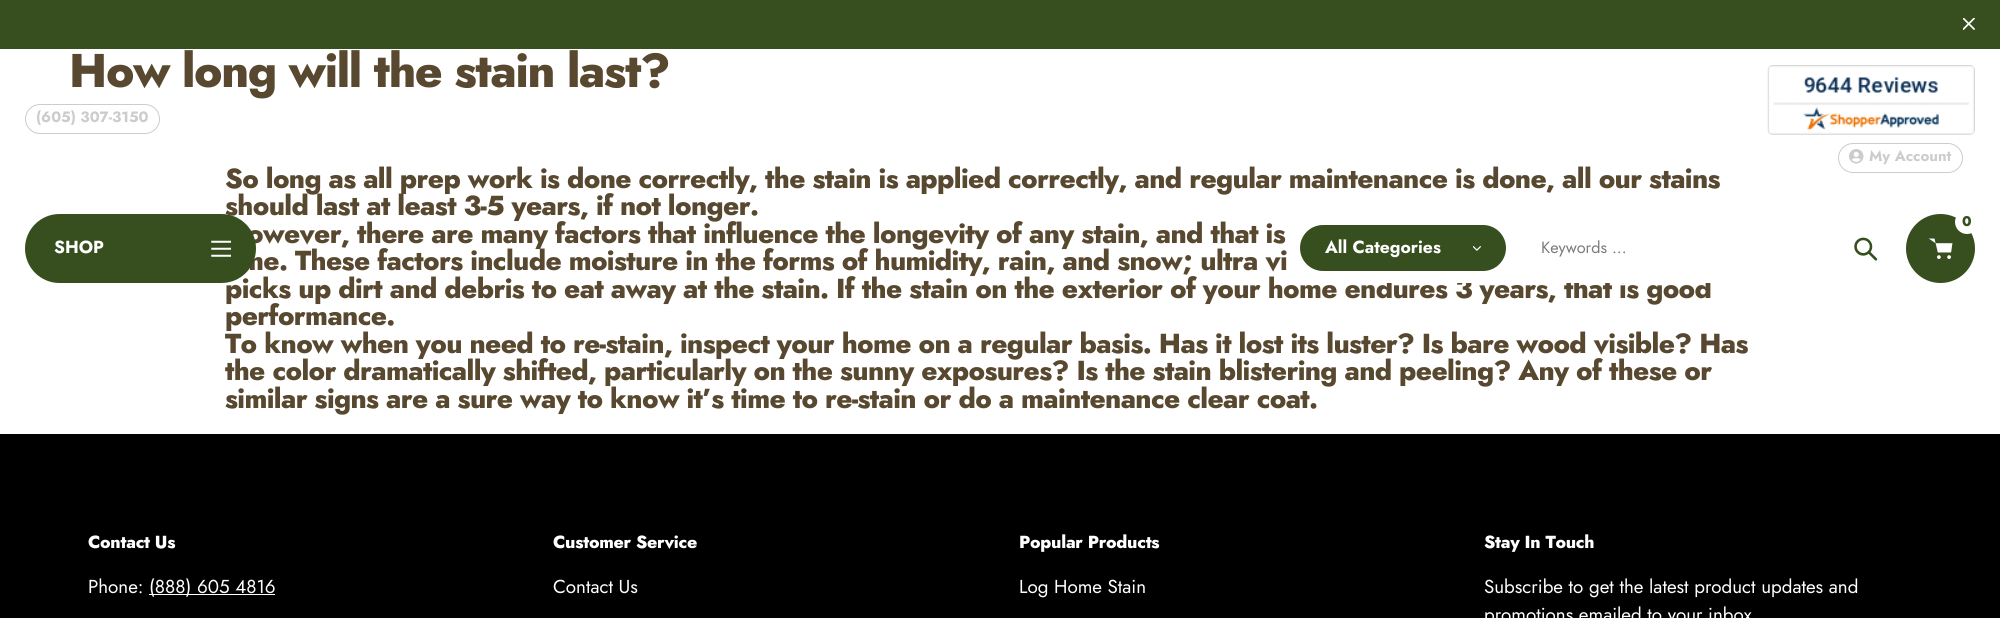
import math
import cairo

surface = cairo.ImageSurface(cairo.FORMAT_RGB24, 2000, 618)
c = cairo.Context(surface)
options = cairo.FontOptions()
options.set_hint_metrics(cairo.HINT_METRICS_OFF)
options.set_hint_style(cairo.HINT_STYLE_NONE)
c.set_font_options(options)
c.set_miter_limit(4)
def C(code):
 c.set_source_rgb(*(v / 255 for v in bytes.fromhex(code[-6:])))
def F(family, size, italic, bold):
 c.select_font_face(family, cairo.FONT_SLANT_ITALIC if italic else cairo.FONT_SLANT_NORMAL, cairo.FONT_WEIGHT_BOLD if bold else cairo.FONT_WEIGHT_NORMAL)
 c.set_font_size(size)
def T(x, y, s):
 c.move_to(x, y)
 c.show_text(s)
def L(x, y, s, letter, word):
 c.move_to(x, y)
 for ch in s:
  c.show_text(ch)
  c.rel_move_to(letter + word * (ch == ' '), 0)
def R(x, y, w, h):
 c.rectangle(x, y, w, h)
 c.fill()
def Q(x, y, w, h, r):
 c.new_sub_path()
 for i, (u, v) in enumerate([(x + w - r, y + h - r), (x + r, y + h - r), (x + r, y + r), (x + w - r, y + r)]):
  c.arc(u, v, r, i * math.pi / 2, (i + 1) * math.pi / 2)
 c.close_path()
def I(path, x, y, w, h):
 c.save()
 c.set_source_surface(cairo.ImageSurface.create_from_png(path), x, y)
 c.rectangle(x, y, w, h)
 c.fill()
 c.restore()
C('ffffff')
c.paint()
C('374f1e')
R(0,0,2000,49)
I('1.png',1963,18,12,12)
F('Jost ExtraBold',47.25,0,0)
C('57482f')
L(69,87,'How long will the stain last?',-1.25,0)
F('Jost ExtraBold',27.5,0,0)
L(225,188,'So long as all prep work is done correctly, the stain is applied correctly, and regular maintenance is done, all our stains',-.62,0)
L(225,215,'should last at least 3-5 years, if not longer.',-.62,0)
L(247,243,'owever, there are many factors that influence the longevity of any stain, and that is',-.62,0)
L(241,270,'me. These factors include moisture in the forms of humidity, rain, and snow; ultra vi',-.62,0)
L(225,298,'picks up dirt and debris to eat away at the stain. If the stain on the exterior of your home endures 3 years, that is good',-.62,0)
L(225,325,'performance.',-.62,0)
L(225,353,'To know when you need to re-stain, inspect your home on a regular basis. Has it lost its luster? Is bare wood visible? Has',-.62,0)
L(225,380,'the color dramatically shifted, particularly on the sunny exposures? Is the stain blistering and peeling? Any of these or',-.62,0)
L(225,408,'similar signs are a sure way to know it’s time to re-stain or do a maintenance clear coat.',-.62,0)
C('000000')
R(0,434,2000,184)
F('Jost ExtraBold',17.5,0,0)
C('ffffff')
L(88,548,'Contact Us',-.25,0)
F('Jost',18.75,0,0)
T(88,593,'Phone:')
R(149,594,126,1)
T(149,593,'(888) 605 4816')
F('Jost ExtraBold',17.5,0,0)
L(553,548,'Customer Service',-.25,0)
F('Jost',18.75,0,0)
T(553,593,'Contact Us')
F('Jost ExtraBold',17.5,0,0)
L(1019,548,'Popular Products',-.25,0)
F('Jost',18.75,0,0)
T(1019,593,'Log Home Stain')
F('Jost ExtraBold',17.5,0,0)
L(1484,548,'Stay In Touch',-.25,0)
F('Jost',18.75,0,0)
T(1484,593,'Subscribe to get the latest product updates and')
T(1484,621,'promotions emailed to your inbox')
Q(25.5,104.5,134,29,14.5)
C('cccccc')
c.set_line_width(1)
c.stroke()
F('Jost',15,0,1)
T(36,122,'(605) 307-3150')
I('2.png',1767,65,208,70)
Q(1838.5,143.5,124,29,14.5)
c.stroke()
I('3.png',1849,149,15,15)
T(1869,161,'My Account')
C('374f1e')
Q(25,214,231,69,34.5)
c.fill()
F('Jost',17.5,0,1)
C('ffffff')
T(54,253,'SHOP')
I('4.png',211,240,20,17)
C('374f1e')
c.arc(1940.5,248.5,34.5,0,2 * math.pi)
c.fill()
C('ffffff')
c.arc(1967,222,12,0,2 * math.pi)
c.fill()
F('Jost ExtraBold',14,0,0)
C('374f1e')
T(1962,226,'0')
I('5.png',1929,238,24,21)
C('ffffff')
Q(1288,214,606,69,34.5)
c.fill()
C('374f1e')
Q(1300,225,206,46,23)
c.fill()
F('Jost',17.5,0,1)
C('ffffff')
T(1325,253,'All Categories')
I('6.png',1473,246,8,5)
F('Jost',16.25,0,0)
C('7b7b7b')
T(1541,253,'Keywords ...')
I('7.png',1854,237,24,24)
surface.write_to_png('o.png')
